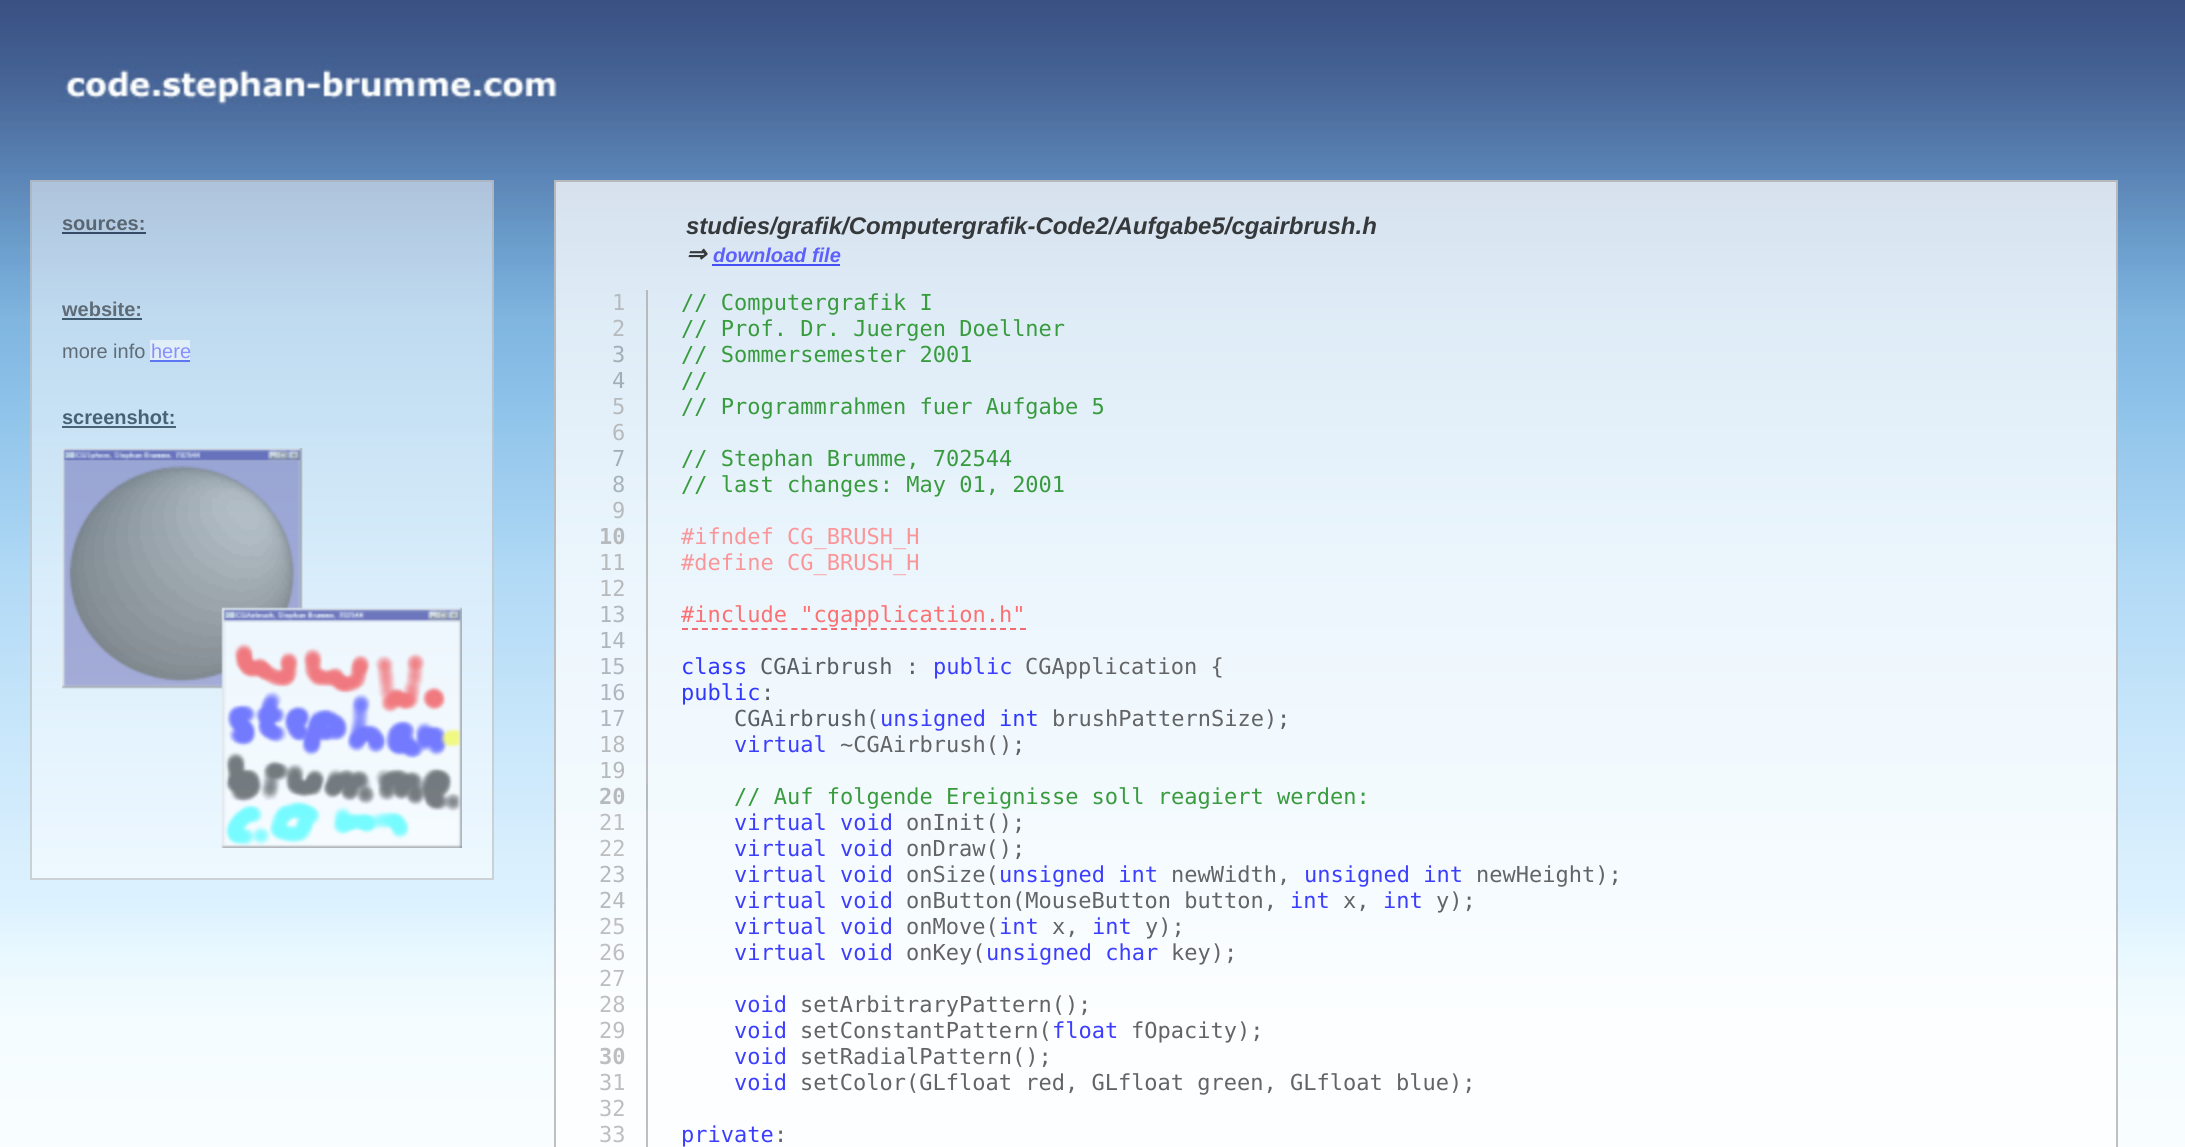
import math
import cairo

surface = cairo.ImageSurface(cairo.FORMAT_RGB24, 2185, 1147)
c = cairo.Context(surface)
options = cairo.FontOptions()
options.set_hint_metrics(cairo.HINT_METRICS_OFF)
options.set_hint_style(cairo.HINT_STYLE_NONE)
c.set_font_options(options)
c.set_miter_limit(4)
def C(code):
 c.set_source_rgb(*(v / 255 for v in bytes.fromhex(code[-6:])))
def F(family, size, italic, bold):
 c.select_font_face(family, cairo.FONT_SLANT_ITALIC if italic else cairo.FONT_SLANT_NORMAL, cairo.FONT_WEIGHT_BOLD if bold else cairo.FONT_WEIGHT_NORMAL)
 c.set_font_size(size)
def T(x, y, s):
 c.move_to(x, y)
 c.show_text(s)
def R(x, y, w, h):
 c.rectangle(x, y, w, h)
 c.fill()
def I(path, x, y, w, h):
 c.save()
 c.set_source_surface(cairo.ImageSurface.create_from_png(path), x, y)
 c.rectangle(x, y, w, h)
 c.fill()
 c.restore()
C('ffffff')
c.paint()
I('1.png',0,0,2185,1147)
I('2.png',60,60,497,48)
c.set_source_rgba(1,1,1,0.5)
R(30,180,464,700)
c.rectangle(31,181,462,698)
c.set_source_rgba(0.667,0.667,0.667,0.5)
c.stroke()
F('Liberation Sans',20,0,1)
C('596571')
T(62,230,'sources:')
C('344d64')
R(62,232,84,2)
C('5f6c77')
T(62,316,'website:')
C('405b70')
R(62,318,80,2)
F('Liberation Sans',20,0,0)
C('5f6c77')
T(62,358,'more info')
C('e0eef8')
R(150,340,40,20)
C('8990fb')
T(151,358,'here')
C('5d77f2')
R(150,360,40,2)
F('Liberation Sans',20,0,1)
C('486275')
T(62,424,'screenshot:')
C('496376')
R(62,426,114,2)
I('3.png',62,448,400,400)
c.set_source_rgba(1,1,1,0.75)
R(554,180,1564,967)
c.rectangle(555,181,1562,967)
c.set_source_rgba(0.667,0.667,0.667,0.75)
c.stroke()
F('Liberation Sans',24,1,1)
C('36393c')
T(686,234,'studies/grafik/Computergrafik-Code2/Aufgabe5/cgairbrush.h')
F('DejaVu Sans',24,1,1)
T(686,262,'⇒')
F('Liberation Sans',20,1,1)
C('5d60fc')
T(713,262,'download file')
C('434ff4')
R(712,264,128,2)
F('DejaVu Sans Mono',22,0,0)
C('b7babd')
T(612,310,'1')
R(646,290,2,26)
C('389b3e')
T(681,310,'// Computergrafik I')
C('b7babd')
T(612,336,'2')
C('b7bbbd')
R(646,316,2,26)
C('389b3e')
T(681,336,'// Prof. Dr. Juergen Doellner')
C('a1aeb8')
T(612,362,'3')
C('389b3e')
T(681,362,'// Sommersemester 2001')
C('a1aeb8')
T(612,388,'4')
C('b8bbbe')
R(646,342,2,78)
C('389b3e')
T(681,388,'//')
C('b7babd')
T(612,414,'5')
C('389b3e')
T(681,414,'// Programmrahmen fuer Aufgabe 5')
C('b7babd')
T(612,440,'6')
C('a1aeb8')
T(612,466,'7')
C('b9bcbe')
R(646,420,2,78)
C('389b3e')
T(681,466,'// Stephan Brumme, 702544')
C('a7b3bb')
T(612,492,'8')
C('389b3e')
T(681,492,'// last changes: May 01, 2001')
C('b7babd')
T(612,518,'9')
C('babcbe')
R(646,498,2,26)
F('DejaVu Sans Mono',22,0,1)
C('b7babd')
T(599,544,'10')
F('DejaVu Sans Mono',22,0,0)
C('fa9698')
T(681,544,'#ifndef CG_BRUSH_H')
C('b7babd')
T(599,570,'11')
C('babdbf')
R(646,524,2,52)
C('fa9698')
T(681,570,'#define CG_BRUSH_H')
C('b7babd')
T(599,596,'12')
C('adb7bd')
T(599,622,'13')
C('fb7172')
T(681,622,'#include "cgapplication.h"')
c.new_path()
c.move_to(682,629)
c.line_to(1026,629)
C('ee6b71')
c.set_dash([6,3.94])
c.stroke()
C('adb7bd')
T(599,648,'14')
C('bbbdbf')
R(646,576,2,104)
C('adb7bd')
T(599,674,'15')
C('3038fd')
T(681,674,'class')
C('565f64')
T(760,674,'CGAirbrush :')
C('3c3eff')
T(933,674,'public')
C('626466')
T(1025,674,'CGApplication {')
C('adb7bd')
T(599,700,'16')
C('3038fd')
T(681,700,'public')
C('565f64')
T(761,700,':')
C('adb7bd')
T(599,726,'17')
C('565f64')
T(734,726,'CGAirbrush')
C('626466')
T(866,726,'(')
C('3c3eff')
T(880,726,'unsigned')
C('3038fd')
T(999,726,'int')
C('626466')
T(1052,726,'brushPatternSize)')
C('565f64')
T(1277,726,';')
C('b7babd')
T(599,752,'18')
C('bcbebf')
R(646,680,2,104)
C('3c3eff')
T(734,752,'virtual')
C('626466')
T(840,752,'~CGAirbrush()')
C('565f64')
T(1012,752,';')
C('b7babd')
T(599,778,'19')
F('DejaVu Sans Mono',22,0,1)
T(599,804,'20')
C('b4babe')
R(646,784,2,26)
F('DejaVu Sans Mono',22,0,0)
C('389b3e')
T(734,804,'// Auf folgende Ereignisse soll reagiert werden:')
C('bdbebf')
T(599,830,'21')
C('3c3eff')
T(734,830,'virtual void')
C('626466')
T(906,830,'onInit()')
C('5c6166')
T(1012,830,';')
C('bdbebf')
T(599,856,'22')
R(646,810,2,52)
C('3c3eff')
T(734,856,'virtual void')
C('626466')
T(906,856,'onDraw()')
C('5c6166')
T(1012,856,';')
C('b7babd')
T(599,882,'23')
C('b6bcbf')
R(646,862,2,26)
C('3c3eff')
T(734,882,'virtual void')
C('626466')
T(906,882,'onSize(')
C('3c3eff')
T(999,882,'unsigned int')
C('626466')
T(1171,882,'newWidth,')
C('3c3eff')
T(1304,882,'unsigned int')
C('626466')
T(1476,882,'newHeight);')
C('b7babd')
T(599,908,'24')
C('bdbebf')
R(646,888,2,26)
C('3c3eff')
T(734,908,'virtual void')
C('626466')
T(906,908,'onButton')
T(1012,908,'(MouseButton button,')
C('3c3eff')
T(1290,908,'int')
C('626466')
T(1343,908,'x,')
C('3c3eff')
T(1383,908,'int')
C('626466')
T(1436,908,'y);')
C('bdbebf')
T(599,934,'25')
C('bdbfbf')
R(646,914,2,26)
C('3c3eff')
T(734,934,'virtual void')
C('626466')
T(906,934,'onMove(')
C('3c3eff')
T(999,934,'int')
C('626466')
T(1052,934,'x,')
C('3c3eff')
T(1092,934,'int')
C('626466')
T(1145,934,'y);')
C('bdbebf')
T(599,960,'26')
C('3c3eff')
T(734,960,'virtual void')
C('626466')
T(906,960,'onKey(')
C('3c3eff')
T(986,960,'unsigned char')
C('626466')
T(1171,960,'key);')
C('bdbebf')
T(599,986,'27')
C('bebfbf')
R(646,940,2,78)
C('bdbebf')
T(599,1012,'28')
C('3c3eff')
T(734,1012,'void')
C('626466')
T(800,1012,'setArbitraryPattern()')
T(1078,1012,';')
C('bdbebf')
T(599,1038,'29')
C('bdbfbf')
R(646,1018,2,26)
C('3c3eff')
T(734,1038,'void')
C('626466')
T(800,1038,'setConstantPattern(')
C('3c3eff')
T(1052,1038,'float')
C('626466')
T(1131,1038,'fOpacity);')
F('DejaVu Sans Mono',22,0,1)
C('bdbebf')
T(599,1064,'30')
C('bfbfbf')
R(646,1044,2,26)
F('DejaVu Sans Mono',22,0,0)
C('3c3eff')
T(734,1064,'void')
C('626466')
T(800,1064,'setRadialPattern();')
C('bdbebf')
T(599,1090,'31')
C('3c3eff')
T(734,1090,'void')
C('626466')
T(800,1090,'setColor(GLfloat red, GLfloat green, GLfloat blue);')
C('bdbebf')
T(599,1116,'32')
C('bdbfbf')
R(646,1070,2,52)
C('bdbebf')
T(599,1142,'33')
C('bebfbf')
R(646,1122,2,25)
C('3c3eff')
T(681,1142,'private')
C('626466')
T(774,1142,':')
surface.write_to_png('o.png')
